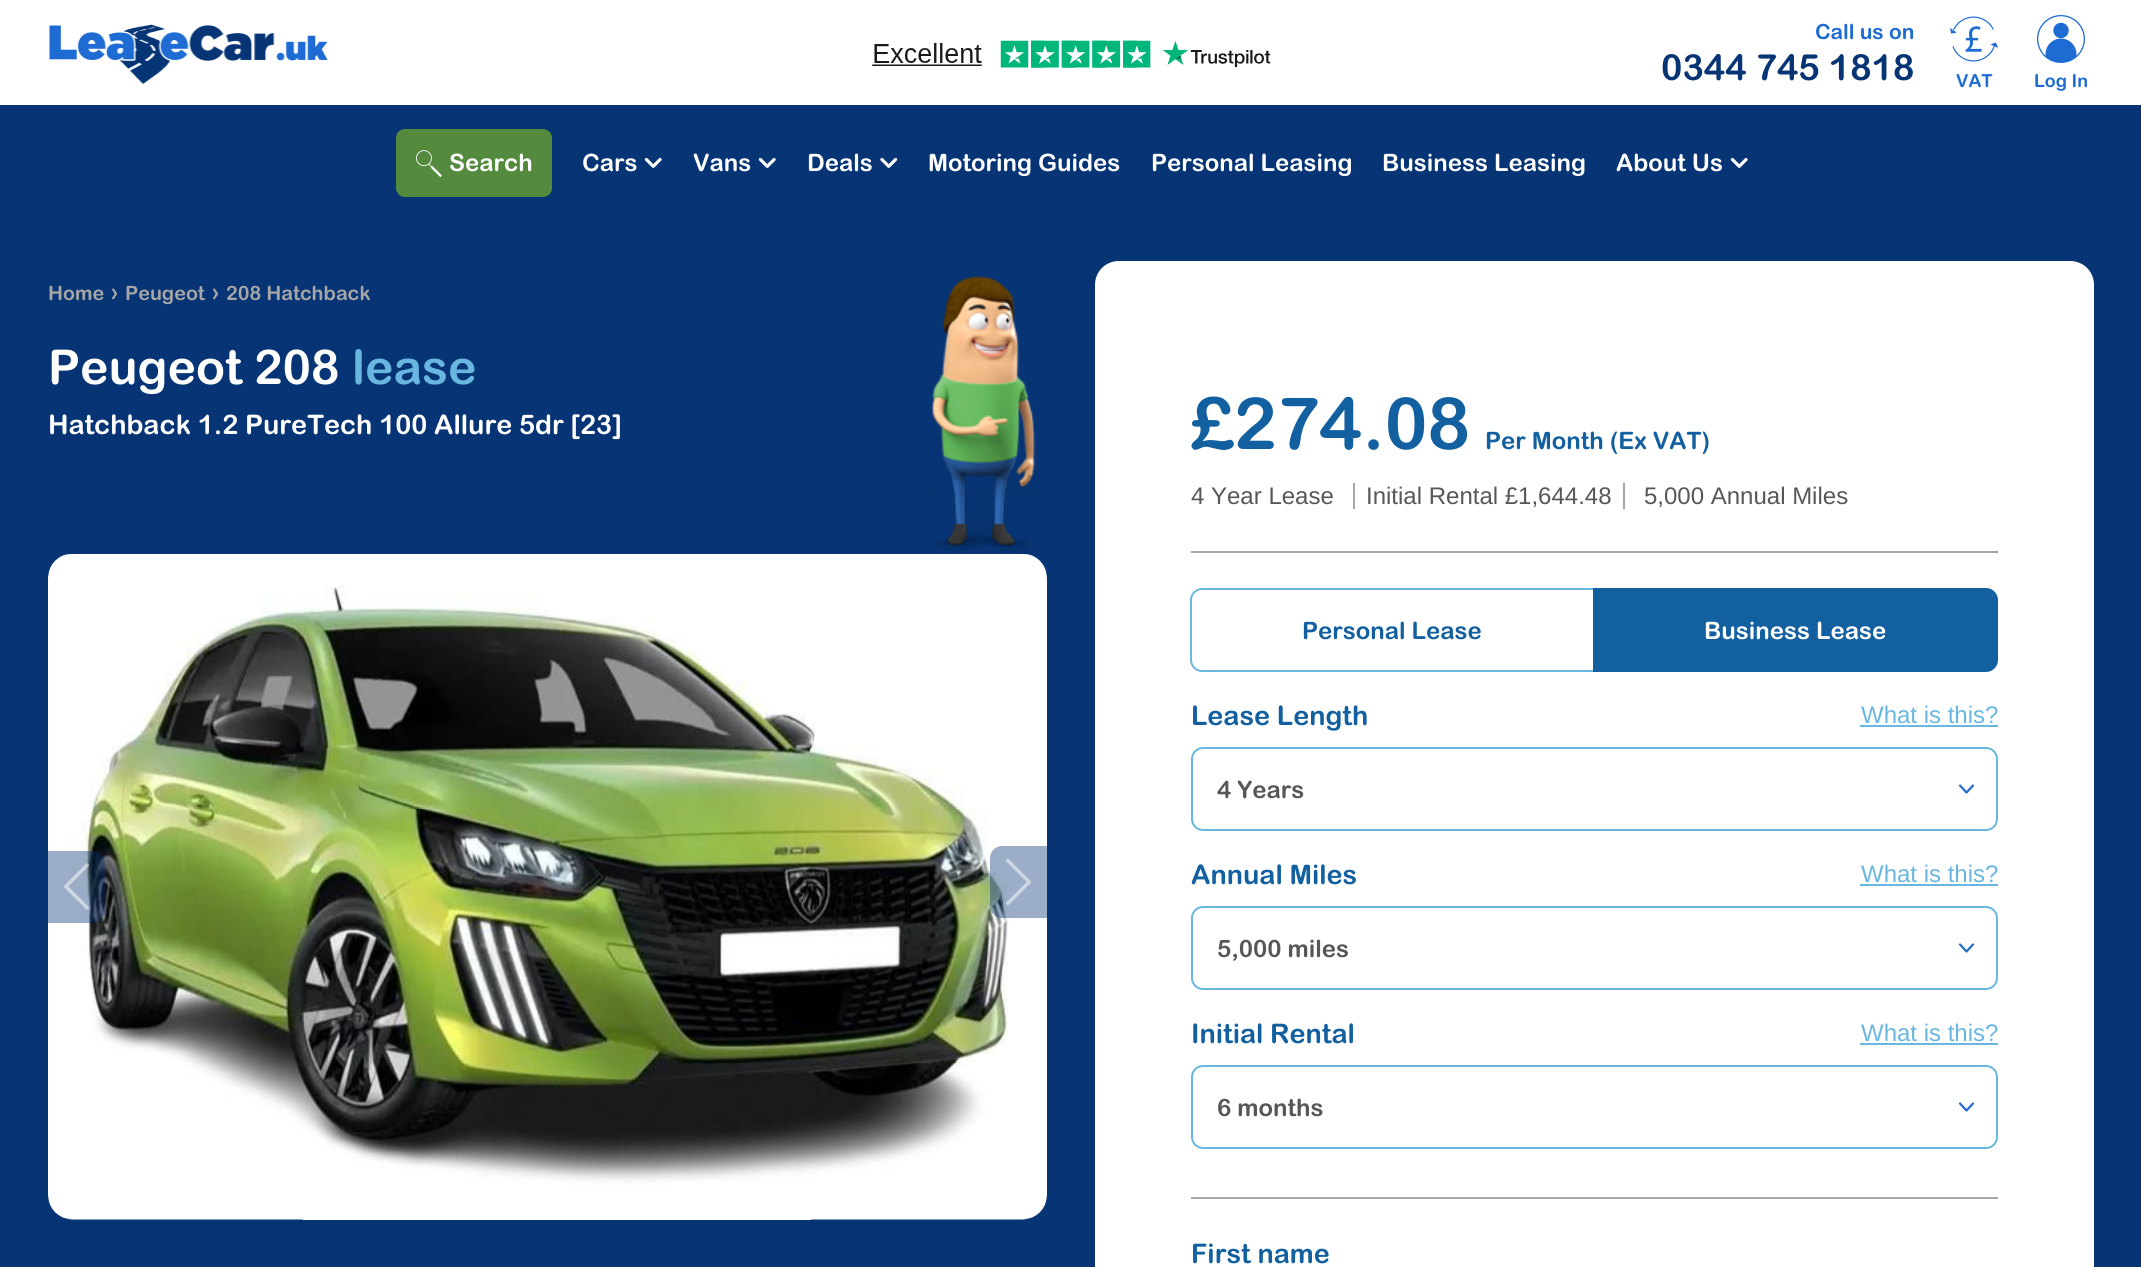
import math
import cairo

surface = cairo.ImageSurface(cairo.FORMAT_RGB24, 2141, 1267)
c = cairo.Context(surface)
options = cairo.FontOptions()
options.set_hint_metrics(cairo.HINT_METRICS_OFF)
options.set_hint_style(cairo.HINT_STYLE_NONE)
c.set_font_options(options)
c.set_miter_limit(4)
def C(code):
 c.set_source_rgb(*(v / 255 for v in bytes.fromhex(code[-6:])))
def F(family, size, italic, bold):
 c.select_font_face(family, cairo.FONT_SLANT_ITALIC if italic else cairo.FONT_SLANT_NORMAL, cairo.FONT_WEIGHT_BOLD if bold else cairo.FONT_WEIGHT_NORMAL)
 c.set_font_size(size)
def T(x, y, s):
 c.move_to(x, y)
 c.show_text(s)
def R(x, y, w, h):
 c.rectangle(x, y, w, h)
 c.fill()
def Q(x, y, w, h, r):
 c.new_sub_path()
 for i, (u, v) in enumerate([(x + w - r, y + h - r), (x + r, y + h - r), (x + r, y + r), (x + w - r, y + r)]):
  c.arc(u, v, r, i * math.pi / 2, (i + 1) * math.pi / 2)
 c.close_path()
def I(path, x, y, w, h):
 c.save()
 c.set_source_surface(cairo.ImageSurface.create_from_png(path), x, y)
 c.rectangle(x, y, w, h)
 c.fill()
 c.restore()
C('063474')
c.paint()
C('ffffff')
R(0,0,2141,105)
I('1.png',49,24,279,60)
I('2.png',872,40,399,28)
F('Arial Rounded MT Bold',21,0,1)
C('1d6bd3')
T(1815,39,'Call us on')
F('Arial Rounded MT Bold',36,0,1)
C('063474')
T(1661,80,'0344 745 1818')
I('3.png',1950,16,48,46)
F('Arial Rounded MT Bold',18,0,1)
C('1d6bd3')
T(1956,87,'VAT')
I('4.png',2037,15,48,48)
T(2034,87,'Log In')
C('538a3d')
Q(396,129,156,68,9)
c.fill()
I('5.png',416,150,26,28)
F('Arial Rounded MT Bold',24,0,1)
C('ffffff')
T(449,171,'Search')
T(582,171,'Cars')
I('6.png',644,158,18,10)
T(693,171,'Vans')
I('6.png',758,158,18,10)
T(807,171,'Deals')
I('7.png',880,158,18,10)
T(928,171,'Motoring Guides')
T(1151,171,'Personal Leasing')
T(1382,171,'Business Leasing')
T(1616,171,'About Us')
I('6.png',1730,158,18,10)
I('8.png',931,275,105,276)
F('Arial Rounded MT Bold',19.75,0,1)
C('a6a6a6')
T(48,300,'Home')
F('Arial Rounded MT Bold',24,0,1)
T(110,300,'›')
F('Arial Rounded MT Bold',19.75,0,1)
T(125,300,'Peugeot')
F('Arial Rounded MT Bold',24,0,1)
T(211,300,'›')
F('Arial Rounded MT Bold',19.75,0,1)
T(226,300,'208 Hatchback')
F('Arial Rounded MT Bold',48,0,1)
C('ffffff')
T(48,384,'Peugeot 208')
C('69b7e0')
T(352,384,'lease')
F('Arial Rounded MT Bold',27,0,1)
C('ffffff')
T(48,434,'Hatchback 1.2 PureTech 100 Allure 5dr [23]')
I('9.png',48,554,999,666)
c.set_source_rgba(0.024,0.204,0.455,0.4)
c.new_path()
c.move_to(48,851)
c.line_to(93,851)
c.curve_to(99.5,851,105,856.5,105,863)
c.line_to(105,911)
c.curve_to(105,917.5,99.5,923,93,923)
c.line_to(48,923)
c.close_path()
c.fill()
I('10.png',64,863,25,47)
c.new_path()
c.move_to(1002,846)
c.line_to(1047,846)
c.line_to(1047,918)
c.line_to(1002,918)
c.curve_to(995.5,918,990,912.5,990,906)
c.line_to(990,858)
c.curve_to(990,851.5,995.5,846,1002,846)
c.close_path()
c.fill()
I('11.png',1006,858,25,48)
C('ffffff')
c.new_path()
c.move_to(1119,261)
c.line_to(2070,261)
c.curve_to(2083.5,261,2094,271.5,2094,285)
c.line_to(2094,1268)
c.line_to(1095,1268)
c.line_to(1095,285)
c.curve_to(1095,271.5,1105.5,261,1119,261)
c.close_path()
c.fill()
F('Arial Rounded MT Bold',72,0,1)
C('1360a0')
T(1191,449,'£274.08')
F('Arial Rounded MT Bold',24,0,1)
T(1485,449,'Per Month (Ex VAT)')
F('Liberation Sans',24,0,0)
C('575757')
T(1191,504,'4 Year Lease')
T(1366,504,'Initial Rental £1,644.48')
C('a6a6a6')
R(1353,483,2,26)
R(1623,483,2,26)
C('575757')
T(1644,504,'5,000 Annual Miles')
C('a6a6a6')
R(1191,551,807,2)
R(1191,1197,807,2)
c.new_path()
c.move_to(1202,589)
c.line_to(1594,589)
c.line_to(1594,671)
c.line_to(1202,671)
c.curve_to(1196,671,1191,666,1191,660)
c.line_to(1191,600)
c.curve_to(1191,594,1196,589,1202,589)
c.close_path()
C('69b7e0')
c.stroke()
F('Arial Rounded MT Bold',24,0,1)
C('1360a0')
T(1302,639,'Personal Lease')
c.new_path()
c.move_to(1594,589)
c.line_to(1986,589)
c.curve_to(1992,589,1997,594,1997,600)
c.line_to(1997,660)
c.curve_to(1997,666,1992,671,1986,671)
c.line_to(1594,671)
c.close_path()
c.fill_preserve()
c.stroke()
C('ffffff')
T(1704,639,'Business Lease')
F('Arial Rounded MT Bold',27,0,1)
C('1360a0')
T(1191,725,'Lease Length')
F('Liberation Sans',24,0,0)
C('69b7e0')
T(1861,723,'What is this?')
R(1860,725,138,2)
c.new_path()
c.move_to(1960,785.5)
c.line_to(1966.5,792.5)
c.line_to(1973,785.5)
C('1d6bd3')
c.set_line_width(2.2)
c.set_line_cap(cairo.LINE_CAP_ROUND)
c.set_line_join(cairo.LINE_JOIN_ROUND)
c.stroke()
Q(1192,748,805,82,11)
C('69b7e0')
c.set_line_width(2)
c.set_line_cap(cairo.LINE_CAP_BUTT)
c.set_line_join(cairo.LINE_JOIN_MITER)
c.stroke()
F('Arial Rounded MT Bold',24,0,1)
C('575757')
T(1217,798,'4 Years')
F('Arial Rounded MT Bold',27,0,1)
C('1360a0')
T(1191,884,'Annual Miles')
F('Liberation Sans',24,0,0)
C('69b7e0')
T(1861,882,'What is this?')
R(1860,884,138,2)
c.new_path()
c.move_to(1960,944.5)
c.line_to(1966.5,951.5)
c.line_to(1973,944.5)
C('1d6bd3')
c.set_line_width(2.2)
c.set_line_cap(cairo.LINE_CAP_ROUND)
c.set_line_join(cairo.LINE_JOIN_ROUND)
c.stroke()
Q(1192,907,805,82,11)
C('69b7e0')
c.set_line_width(2)
c.set_line_cap(cairo.LINE_CAP_BUTT)
c.set_line_join(cairo.LINE_JOIN_MITER)
c.stroke()
F('Arial Rounded MT Bold',24,0,1)
C('575757')
T(1217,957,'5,000 miles')
F('Arial Rounded MT Bold',27,0,1)
C('1360a0')
T(1191,1043,'Initial Rental')
F('Liberation Sans',24,0,0)
C('69b7e0')
T(1861,1041,'What is this?')
R(1860,1043,138,2)
c.new_path()
c.move_to(1960,1103.5)
c.line_to(1966.5,1110.5)
c.line_to(1973,1103.5)
C('1d6bd3')
c.set_line_width(2.2)
c.set_line_cap(cairo.LINE_CAP_ROUND)
c.set_line_join(cairo.LINE_JOIN_ROUND)
c.stroke()
Q(1192,1066,805,82,11)
C('69b7e0')
c.set_line_width(2)
c.set_line_cap(cairo.LINE_CAP_BUTT)
c.set_line_join(cairo.LINE_JOIN_MITER)
c.stroke()
F('Arial Rounded MT Bold',24,0,1)
C('575757')
T(1217,1116,'6 months')
F('Arial Rounded MT Bold',27,0,1)
C('1360a0')
T(1191,1263,'First name')
surface.write_to_png('o.png')
